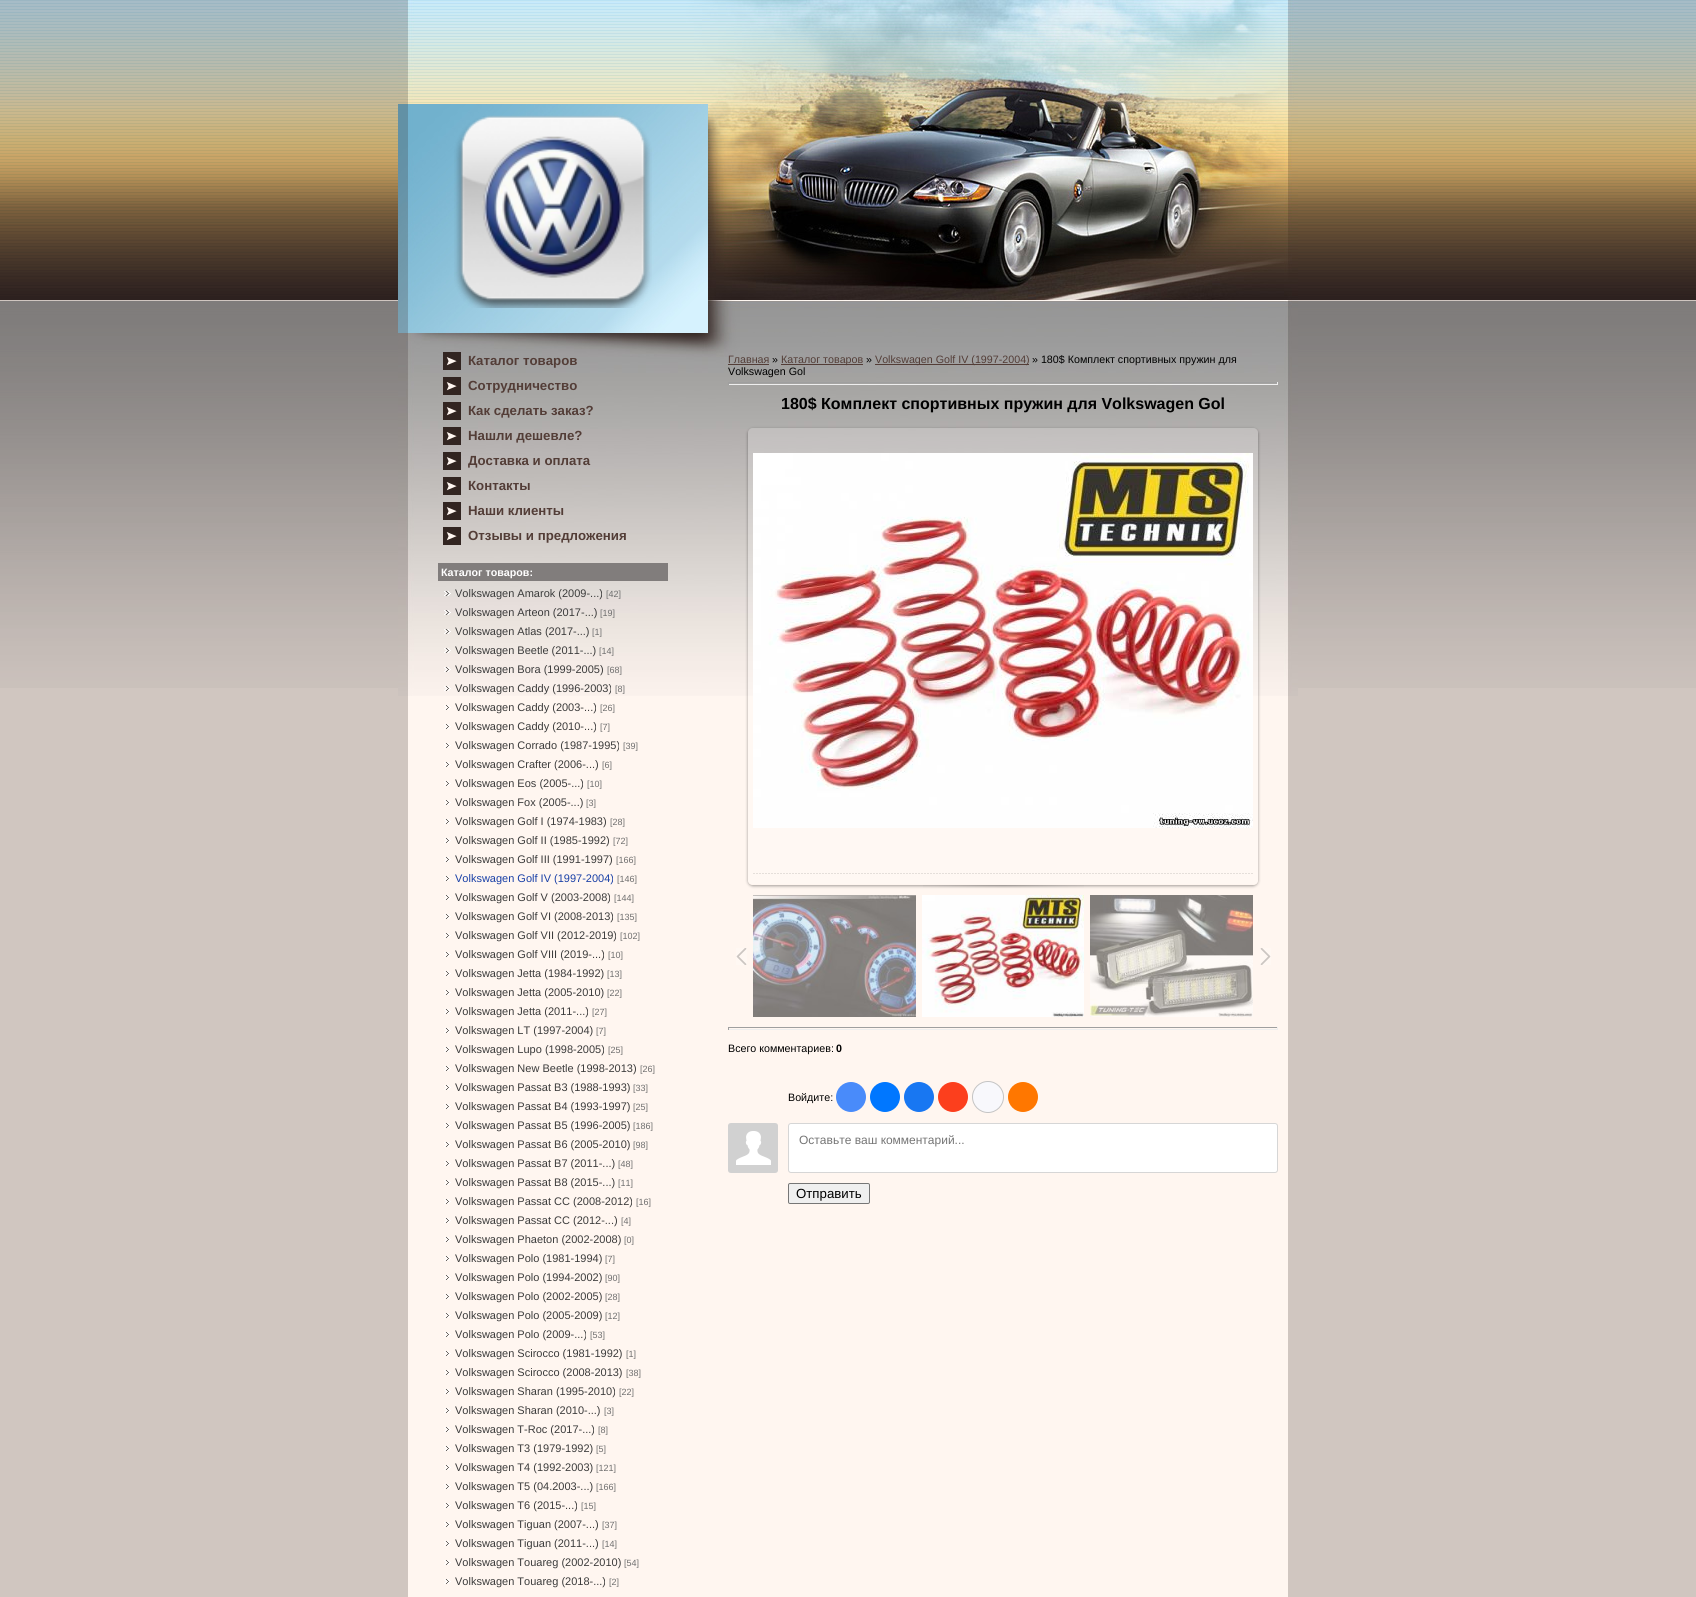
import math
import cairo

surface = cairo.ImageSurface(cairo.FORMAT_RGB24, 1696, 1597)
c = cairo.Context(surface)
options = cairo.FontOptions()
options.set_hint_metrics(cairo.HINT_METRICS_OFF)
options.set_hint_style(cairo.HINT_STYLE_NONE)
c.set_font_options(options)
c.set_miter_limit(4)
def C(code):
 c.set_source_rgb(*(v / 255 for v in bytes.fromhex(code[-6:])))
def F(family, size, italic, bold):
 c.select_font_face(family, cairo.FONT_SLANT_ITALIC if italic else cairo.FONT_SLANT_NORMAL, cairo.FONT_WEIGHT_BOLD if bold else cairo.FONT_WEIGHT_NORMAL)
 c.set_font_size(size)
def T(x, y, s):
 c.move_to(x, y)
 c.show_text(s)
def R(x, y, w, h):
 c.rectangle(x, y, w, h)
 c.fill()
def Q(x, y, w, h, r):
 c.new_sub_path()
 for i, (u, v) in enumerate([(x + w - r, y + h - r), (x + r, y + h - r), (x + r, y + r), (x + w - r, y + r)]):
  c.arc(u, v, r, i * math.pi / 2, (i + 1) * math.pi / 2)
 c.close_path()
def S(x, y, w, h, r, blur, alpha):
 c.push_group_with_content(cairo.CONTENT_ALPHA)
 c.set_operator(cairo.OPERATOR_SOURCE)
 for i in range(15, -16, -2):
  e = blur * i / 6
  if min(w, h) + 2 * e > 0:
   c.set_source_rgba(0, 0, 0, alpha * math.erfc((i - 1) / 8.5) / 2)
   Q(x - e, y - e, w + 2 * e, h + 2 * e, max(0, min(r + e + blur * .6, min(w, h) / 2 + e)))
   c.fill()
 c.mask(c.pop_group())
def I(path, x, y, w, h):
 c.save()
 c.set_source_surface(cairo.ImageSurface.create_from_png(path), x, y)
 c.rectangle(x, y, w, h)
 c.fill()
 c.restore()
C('d0c6c0')
c.paint()
I('1.png',0,0,1696,688)
I('2.png',398,696,900,901)
I('3.png',398,0,900,104)
I('4.png',398,104,310,229)
I('5.png',454,115,198,193)
I('6.png',708,104,590,196)
I('7.png',708,300,590,33)
I('8.png',398,333,310,363)
I('9.png',443,352,18,18)
F('Liberation Sans',13.25,0,1)
C('533d37')
T(468,365,'Каталог товаров')
I('9.png',443,377,18,18)
T(468,390,'Сотрудничество')
I('9.png',443,402,18,18)
T(468,415,'Как сделать заказ?')
I('9.png',443,427,18,18)
T(468,440,'Нашли дешевле?')
I('9.png',443,452,18,18)
T(468,465,'Доставка и оплата')
I('9.png',443,477,18,18)
T(468,490,'Контакты')
I('9.png',443,502,18,18)
T(468,515,'Наши клиенты')
I('9.png',443,527,18,18)
T(468,540,'Отзывы и предложения')
C('817d7c')
R(438,563,230,18)
F('Liberation Sans',10.7,0,1)
C('ffffff')
T(441,576,'Каталог товаров:')
I('10.png',444,591,7,5)
F('Liberation Sans',11,0,0)
C('3b3b3b')
T(455,597,'Volkswagen Amarok (2009-...)')
F('Liberation Sans',9,0,0)
C('6e6e6e')
T(606,597,'[42]')
I('11.png',444,610,7,5)
F('Liberation Sans',11,0,0)
C('3b3b3b')
T(455,616,'Volkswagen Arteon (2017-...)')
F('Liberation Sans',9,0,0)
C('6e6e6e')
T(600,616,'[19]')
I('12.png',444,629,7,5)
F('Liberation Sans',11,0,0)
C('3b3b3b')
T(455,635,'Volkswagen Atlas (2017-...)')
F('Liberation Sans',9,0,0)
C('6e6e6e')
T(592,635,'[1]')
I('13.png',444,648,7,5)
F('Liberation Sans',11,0,0)
C('3b3b3b')
T(455,654,'Volkswagen Beetle (2011-...)')
F('Liberation Sans',9,0,0)
C('6e6e6e')
T(599,654,'[14]')
I('14.png',444,667,7,5)
F('Liberation Sans',11,0,0)
C('3b3b3b')
T(455,673,'Volkswagen Bora (1999-2005)')
F('Liberation Sans',9,0,0)
C('6e6e6e')
T(607,673,'[68]')
I('15.png',444,686,7,5)
F('Liberation Sans',11,0,0)
C('3b3b3b')
T(455,692,'Volkswagen Caddy (1996-2003)')
F('Liberation Sans',9,0,0)
C('6e6e6e')
T(615,692,'[8]')
I('16.png',444,705,7,5)
F('Liberation Sans',11,0,0)
C('3b3b3b')
T(455,711,'Volkswagen Caddy (2003-...)')
F('Liberation Sans',9,0,0)
C('6e6e6e')
T(600,711,'[26]')
I('16.png',444,724,7,5)
F('Liberation Sans',11,0,0)
C('3b3b3b')
T(455,730,'Volkswagen Caddy (2010-...)')
F('Liberation Sans',9,0,0)
C('6e6e6e')
T(600,730,'[7]')
I('16.png',444,743,7,5)
F('Liberation Sans',11,0,0)
C('3b3b3b')
T(455,749,'Volkswagen Corrado (1987-1995)')
F('Liberation Sans',9,0,0)
C('6e6e6e')
T(623,749,'[39]')
I('16.png',444,762,7,5)
F('Liberation Sans',11,0,0)
C('3b3b3b')
T(455,768,'Volkswagen Crafter (2006-...)')
F('Liberation Sans',9,0,0)
C('6e6e6e')
T(602,768,'[6]')
I('16.png',444,781,7,5)
F('Liberation Sans',11,0,0)
C('3b3b3b')
T(455,787,'Volkswagen Eos (2005-...)')
F('Liberation Sans',9,0,0)
C('6e6e6e')
T(587,787,'[10]')
I('16.png',444,800,7,5)
F('Liberation Sans',11,0,0)
C('3b3b3b')
T(455,806,'Volkswagen Fox (2005-...)')
F('Liberation Sans',9,0,0)
C('6e6e6e')
T(586,806,'[3]')
I('16.png',444,819,7,5)
F('Liberation Sans',11,0,0)
C('3b3b3b')
T(455,825,'Volkswagen Golf I (1974-1983)')
F('Liberation Sans',9,0,0)
C('6e6e6e')
T(610,825,'[28]')
I('16.png',444,838,7,5)
F('Liberation Sans',11,0,0)
C('3b3b3b')
T(455,844,'Volkswagen Golf II (1985-1992)')
F('Liberation Sans',9,0,0)
C('6e6e6e')
T(613,844,'[72]')
I('16.png',444,857,7,5)
F('Liberation Sans',11,0,0)
C('3b3b3b')
T(455,863,'Volkswagen Golf III (1991-1997)')
F('Liberation Sans',9,0,0)
C('6e6e6e')
T(616,863,'[166]')
I('16.png',444,876,7,5)
F('Liberation Sans',11,0,0)
C('183fa6')
T(455,882,'Volkswagen Golf IV (1997-2004)')
F('Liberation Sans',9,0,0)
C('6e6e6e')
T(617,882,'[146]')
I('16.png',444,895,7,5)
F('Liberation Sans',11,0,0)
C('3b3b3b')
T(455,901,'Volkswagen Golf V (2003-2008)')
F('Liberation Sans',9,0,0)
C('6e6e6e')
T(614,901,'[144]')
I('16.png',444,914,7,5)
F('Liberation Sans',11,0,0)
C('3b3b3b')
T(455,920,'Volkswagen Golf VI (2008-2013)')
F('Liberation Sans',9,0,0)
C('6e6e6e')
T(617,920,'[135]')
I('16.png',444,933,7,5)
F('Liberation Sans',11,0,0)
C('3b3b3b')
T(455,939,'Volkswagen Golf VII (2012-2019)')
F('Liberation Sans',9,0,0)
C('6e6e6e')
T(620,939,'[102]')
I('16.png',444,952,7,5)
F('Liberation Sans',11,0,0)
C('3b3b3b')
T(455,958,'Volkswagen Golf VIII (2019-...)')
F('Liberation Sans',9,0,0)
C('6e6e6e')
T(608,958,'[10]')
I('16.png',444,971,7,5)
F('Liberation Sans',11,0,0)
C('3b3b3b')
T(455,977,'Volkswagen Jetta (1984-1992)')
F('Liberation Sans',9,0,0)
C('6e6e6e')
T(607,977,'[13]')
I('16.png',444,990,7,5)
F('Liberation Sans',11,0,0)
C('3b3b3b')
T(455,996,'Volkswagen Jetta (2005-2010)')
F('Liberation Sans',9,0,0)
C('6e6e6e')
T(607,996,'[22]')
I('16.png',444,1009,7,5)
F('Liberation Sans',11,0,0)
C('3b3b3b')
T(455,1015,'Volkswagen Jetta (2011-...)')
F('Liberation Sans',9,0,0)
C('6e6e6e')
T(592,1015,'[27]')
I('16.png',444,1028,7,5)
F('Liberation Sans',11,0,0)
C('3b3b3b')
T(455,1034,'Volkswagen LT (1997-2004)')
F('Liberation Sans',9,0,0)
C('6e6e6e')
T(596,1034,'[7]')
I('16.png',444,1047,7,5)
F('Liberation Sans',11,0,0)
C('3b3b3b')
T(455,1053,'Volkswagen Lupo (1998-2005)')
F('Liberation Sans',9,0,0)
C('6e6e6e')
T(608,1053,'[25]')
I('16.png',444,1066,7,5)
F('Liberation Sans',11,0,0)
C('3b3b3b')
T(455,1072,'Volkswagen New Beetle (1998-2013)')
F('Liberation Sans',9,0,0)
C('6e6e6e')
T(640,1072,'[26]')
I('16.png',444,1085,7,5)
F('Liberation Sans',11,0,0)
C('3b3b3b')
T(455,1091,'Volkswagen Passat B3 (1988-1993)')
F('Liberation Sans',9,0,0)
C('6e6e6e')
T(633,1091,'[33]')
I('16.png',444,1104,7,5)
F('Liberation Sans',11,0,0)
C('3b3b3b')
T(455,1110,'Volkswagen Passat B4 (1993-1997)')
F('Liberation Sans',9,0,0)
C('6e6e6e')
T(633,1110,'[25]')
I('16.png',444,1123,7,5)
F('Liberation Sans',11,0,0)
C('3b3b3b')
T(455,1129,'Volkswagen Passat B5 (1996-2005)')
F('Liberation Sans',9,0,0)
C('6e6e6e')
T(633,1129,'[186]')
I('16.png',444,1142,7,5)
F('Liberation Sans',11,0,0)
C('3b3b3b')
T(455,1148,'Volkswagen Passat B6 (2005-2010)')
F('Liberation Sans',9,0,0)
C('6e6e6e')
T(633,1148,'[98]')
I('16.png',444,1161,7,5)
F('Liberation Sans',11,0,0)
C('3b3b3b')
T(455,1167,'Volkswagen Passat B7 (2011-...)')
F('Liberation Sans',9,0,0)
C('6e6e6e')
T(618,1167,'[48]')
I('16.png',444,1180,7,5)
F('Liberation Sans',11,0,0)
C('3b3b3b')
T(455,1186,'Volkswagen Passat B8 (2015-...)')
F('Liberation Sans',9,0,0)
C('6e6e6e')
T(618,1186,'[11]')
I('16.png',444,1199,7,5)
F('Liberation Sans',11,0,0)
C('3b3b3b')
T(455,1205,'Volkswagen Passat CC (2008-2012)')
F('Liberation Sans',9,0,0)
C('6e6e6e')
T(636,1205,'[16]')
I('16.png',444,1218,7,5)
F('Liberation Sans',11,0,0)
C('3b3b3b')
T(455,1224,'Volkswagen Passat CC (2012-...)')
F('Liberation Sans',9,0,0)
C('6e6e6e')
T(621,1224,'[4]')
I('16.png',444,1237,7,5)
F('Liberation Sans',11,0,0)
C('3b3b3b')
T(455,1243,'Volkswagen Phaeton (2002-2008)')
F('Liberation Sans',9,0,0)
C('6e6e6e')
T(624,1243,'[0]')
I('16.png',444,1256,7,5)
F('Liberation Sans',11,0,0)
C('3b3b3b')
T(455,1262,'Volkswagen Polo (1981-1994)')
F('Liberation Sans',9,0,0)
C('6e6e6e')
T(605,1262,'[7]')
I('16.png',444,1275,7,5)
F('Liberation Sans',11,0,0)
C('3b3b3b')
T(455,1281,'Volkswagen Polo (1994-2002)')
F('Liberation Sans',9,0,0)
C('6e6e6e')
T(605,1281,'[90]')
I('16.png',444,1294,7,5)
F('Liberation Sans',11,0,0)
C('3b3b3b')
T(455,1300,'Volkswagen Polo (2002-2005)')
F('Liberation Sans',9,0,0)
C('6e6e6e')
T(605,1300,'[28]')
I('16.png',444,1313,7,5)
F('Liberation Sans',11,0,0)
C('3b3b3b')
T(455,1319,'Volkswagen Polo (2005-2009)')
F('Liberation Sans',9,0,0)
C('6e6e6e')
T(605,1319,'[12]')
I('16.png',444,1332,7,5)
F('Liberation Sans',11,0,0)
C('3b3b3b')
T(455,1338,'Volkswagen Polo (2009-...)')
F('Liberation Sans',9,0,0)
C('6e6e6e')
T(590,1338,'[53]')
I('16.png',444,1351,7,5)
F('Liberation Sans',11,0,0)
C('3b3b3b')
T(455,1357,'Volkswagen Scirocco (1981-1992)')
F('Liberation Sans',9,0,0)
C('6e6e6e')
T(626,1357,'[1]')
I('16.png',444,1370,7,5)
F('Liberation Sans',11,0,0)
C('3b3b3b')
T(455,1376,'Volkswagen Scirocco (2008-2013)')
F('Liberation Sans',9,0,0)
C('6e6e6e')
T(626,1376,'[38]')
I('16.png',444,1389,7,5)
F('Liberation Sans',11,0,0)
C('3b3b3b')
T(455,1395,'Volkswagen Sharan (1995-2010)')
F('Liberation Sans',9,0,0)
C('6e6e6e')
T(619,1395,'[22]')
I('16.png',444,1408,7,5)
F('Liberation Sans',11,0,0)
C('3b3b3b')
T(455,1414,'Volkswagen Sharan (2010-...)')
F('Liberation Sans',9,0,0)
C('6e6e6e')
T(604,1414,'[3]')
I('16.png',444,1427,7,5)
F('Liberation Sans',11,0,0)
C('3b3b3b')
T(455,1433,'Volkswagen T-Roc (2017-...)')
F('Liberation Sans',9,0,0)
C('6e6e6e')
T(598,1433,'[8]')
I('16.png',444,1446,7,5)
F('Liberation Sans',11,0,0)
C('3b3b3b')
T(455,1452,'Volkswagen T3 (1979-1992)')
F('Liberation Sans',9,0,0)
C('6e6e6e')
T(596,1452,'[5]')
I('16.png',444,1465,7,5)
F('Liberation Sans',11,0,0)
C('3b3b3b')
T(455,1471,'Volkswagen T4 (1992-2003)')
F('Liberation Sans',9,0,0)
C('6e6e6e')
T(596,1471,'[121]')
I('16.png',444,1484,7,5)
F('Liberation Sans',11,0,0)
C('3b3b3b')
T(455,1490,'Volkswagen T5 (04.2003-...)')
F('Liberation Sans',9,0,0)
C('6e6e6e')
T(596,1490,'[166]')
I('16.png',444,1503,7,5)
F('Liberation Sans',11,0,0)
C('3b3b3b')
T(455,1509,'Volkswagen T6 (2015-...)')
F('Liberation Sans',9,0,0)
C('6e6e6e')
T(581,1509,'[15]')
I('16.png',444,1522,7,5)
F('Liberation Sans',11,0,0)
C('3b3b3b')
T(455,1528,'Volkswagen Tiguan (2007-...)')
F('Liberation Sans',9,0,0)
C('6e6e6e')
T(602,1528,'[37]')
I('16.png',444,1541,7,5)
F('Liberation Sans',11,0,0)
C('3b3b3b')
T(455,1547,'Volkswagen Tiguan (2011-...)')
F('Liberation Sans',9,0,0)
C('6e6e6e')
T(602,1547,'[14]')
I('16.png',444,1560,7,5)
F('Liberation Sans',11,0,0)
C('3b3b3b')
T(455,1566,'Volkswagen Touareg (2002-2010)')
F('Liberation Sans',9,0,0)
C('6e6e6e')
T(624,1566,'[54]')
I('16.png',444,1579,7,5)
F('Liberation Sans',11,0,0)
C('3b3b3b')
T(455,1585,'Volkswagen Touareg (2018-...)')
F('Liberation Sans',9,0,0)
C('6e6e6e')
T(609,1585,'[2]')
I('17.png',708,333,590,363)
F('Liberation Sans',10.7,0,0)
C('533d37')
T(728,363,'Главная')
R(728,364,41,1)
C('000000')
T(772,363,'»')
C('533d37')
R(781,364,82,1)
T(781,363,'Каталог товаров')
C('000000')
T(866,363,'»')
C('533d37')
R(875,364,154,1)
T(875,363,'Volkswagen Golf IV (1997-2004)')
C('000000')
T(1032,363,'» 180$ Комплект спортивных пружин для')
T(728,375,'Volkswagen Gol')
C('9f9f9f')
R(728,382,550,1)
C('eeeeee')
R(1277,382,1,3)
R(728,384,550,1)
C('9f9f9f')
R(728,382,1,3)
F('Liberation Sans',16,0,1)
C('000000')
T(781,409,'180$ Комплект спортивных пружин для Volkswagen Gol')
c.save()
c.set_fill_rule(cairo.FILL_RULE_EVEN_ODD)
c.new_path()
c.move_to(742,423)
c.line_to(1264,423)
c.line_to(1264,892)
c.line_to(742,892)
c.close_path()
c.move_to(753,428)
c.line_to(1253,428)
c.curve_to(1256,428,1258,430,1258,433)
c.line_to(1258,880)
c.curve_to(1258,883,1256,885,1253,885)
c.line_to(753,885)
c.curve_to(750,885,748,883,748,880)
c.line_to(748,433)
c.curve_to(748,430,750,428,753,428)
c.close_path()
c.clip()
C('000000')
S(748,429,510,457,5,1.5,.37)
c.restore()
I('18.png',748,428,510,456)
I('19.png',753,453,500,375)
I('20.png',753,873,500,1)
I('21.png',923,885,161,3)
I('22.png',736,948,11,17)
I('23.png',753,895,163,122)
I('24.png',922,895,162,122)
I('25.png',1090,895,163,122)
I('26.png',1260,948,11,17)
C('9f9f9f')
R(728,1027,550,1)
C('eeeeee')
R(1277,1027,1,3)
R(728,1029,550,1)
C('9f9f9f')
R(728,1027,1,3)
F('Liberation Sans',10.7,0,0)
C('000000')
T(728,1052,'Всего комментариев:')
F('Liberation Sans',10.7,0,1)
T(836,1052,'0')
F('Liberation Sans',10.7,0,0)
T(788,1101,'Войдите:')
C('498bfa')
c.new_path()
c.arc(851,1097,15,0,2 * math.pi)
c.fill()
C('0077ff')
c.arc(885,1097,15,0,2 * math.pi)
c.fill()
C('1877f2')
c.arc(919,1097,15,0,2 * math.pi)
c.fill()
C('fc3f1d')
c.arc(953,1097,15,0,2 * math.pi)
c.fill()
C('f8f8fc')
c.arc(988,1097,15.5,0,2 * math.pi)
c.fill_preserve()
C('c4c4c4')
c.set_line_width(1)
c.stroke()
C('ff7700')
c.arc(1023,1097,15,0,2 * math.pi)
c.fill()
I('27.png',728,1123,50,50)
C('ffffff')
Q(788.5,1123.5,489,49,2.5)
c.fill_preserve()
C('d6d6d6')
c.stroke()
F('Liberation Sans',12,0,0)
C('757575')
T(799,1144,'Оставьте ваш комментарий...')
C('efefef')
Q(788.5,1183.5,81,20,1.5)
c.fill_preserve()
C('767676')
c.stroke()
F('Liberation Sans',13.25,0,0)
C('000000')
T(796,1198,'Отправить')
surface.write_to_png('o.png')
